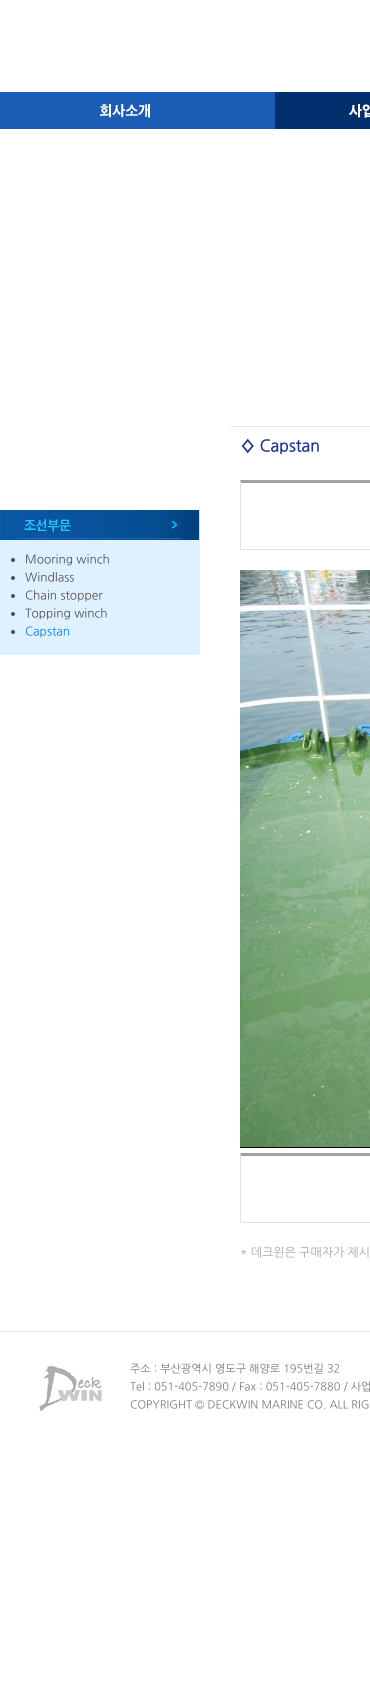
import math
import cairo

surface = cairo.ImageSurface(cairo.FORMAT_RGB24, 370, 1708)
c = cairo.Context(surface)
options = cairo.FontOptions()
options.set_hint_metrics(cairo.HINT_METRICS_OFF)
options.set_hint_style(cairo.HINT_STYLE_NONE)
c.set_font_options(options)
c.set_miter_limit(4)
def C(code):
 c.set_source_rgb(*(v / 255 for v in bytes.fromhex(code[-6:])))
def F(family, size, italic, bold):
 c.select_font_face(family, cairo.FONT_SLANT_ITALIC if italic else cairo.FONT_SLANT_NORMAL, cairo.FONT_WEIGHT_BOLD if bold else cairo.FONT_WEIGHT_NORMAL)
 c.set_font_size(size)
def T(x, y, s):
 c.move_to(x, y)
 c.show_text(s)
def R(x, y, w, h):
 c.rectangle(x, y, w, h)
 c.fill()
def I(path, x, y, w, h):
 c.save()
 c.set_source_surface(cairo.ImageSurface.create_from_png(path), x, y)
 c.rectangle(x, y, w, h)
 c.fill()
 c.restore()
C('ffffff')
c.paint()
C('1b5db6')
R(0,92,275,37)
I('1.png',100,104,50,14)
I('2.png',275,92,95,37)
I('3.png',0,510,200,30)
C('dff0ff')
R(0,540,200,115)
C('4f4f4f')
c.arc(13,560,2,0,2 * math.pi)
c.fill()
F('NanumGothic',12,0,0)
T(25,563,'Mooring winch')
c.new_path()
c.arc(13,578,2,0,2 * math.pi)
c.fill()
T(25,581,'Windlass')
c.new_path()
c.arc(13,596,2,0,2 * math.pi)
c.fill()
T(25,599,'Chain stopper')
c.new_path()
c.arc(13,614,2,0,2 * math.pi)
c.fill()
T(25,617,'Topping winch')
c.new_path()
c.arc(13,632,2,0,2 * math.pi)
c.fill()
C('0279ff')
T(25,635,'Capstan')
C('e6e6e6')
R(230,426,140,1)
F('NanumGothic',16,0,1)
C('1a348e')
T(240,451,'◊ Capstan')
C('a0a0a7')
c.new_path()
c.move_to(240,480)
c.line_to(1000,480)
c.line_to(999,483)
c.line_to(241,483)
c.close_path()
c.fill()
C('e2e3e5')
R(240,549,130,1)
c.new_path()
c.move_to(240,550)
c.line_to(240,480)
c.line_to(241,483)
c.line_to(241,549)
c.close_path()
c.fill()
I('4.png',240,570,130,578)
C('a0a0a7')
c.new_path()
c.move_to(240,1153)
c.line_to(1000,1153)
c.line_to(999,1156)
c.line_to(241,1156)
c.close_path()
c.fill()
C('e2e3e5')
R(240,1222,130,1)
c.new_path()
c.move_to(240,1223)
c.line_to(240,1153)
c.line_to(241,1156)
c.line_to(241,1222)
c.close_path()
c.fill()
F('NanumGothic',12,0,0)
C('a5a5a5')
T(240,1256,'* 데크윈은 구매자가 제시')
C('e6e6e6')
R(0,1331,370,1)
I('5.png',39,1365,63,46)
F('NanumGothic',11,0,0)
C('777777')
T(130,1372,'주소 : 부산광역시 영도구 해양로 195번길 32')
T(130,1390,'Tel : 051-405-7890 / Fax : 051-405-7880 / 사업')
T(130,1408,'COPYRIGHT © DECKWIN MARINE CO. ALL RIG')
surface.write_to_png('o.png')
